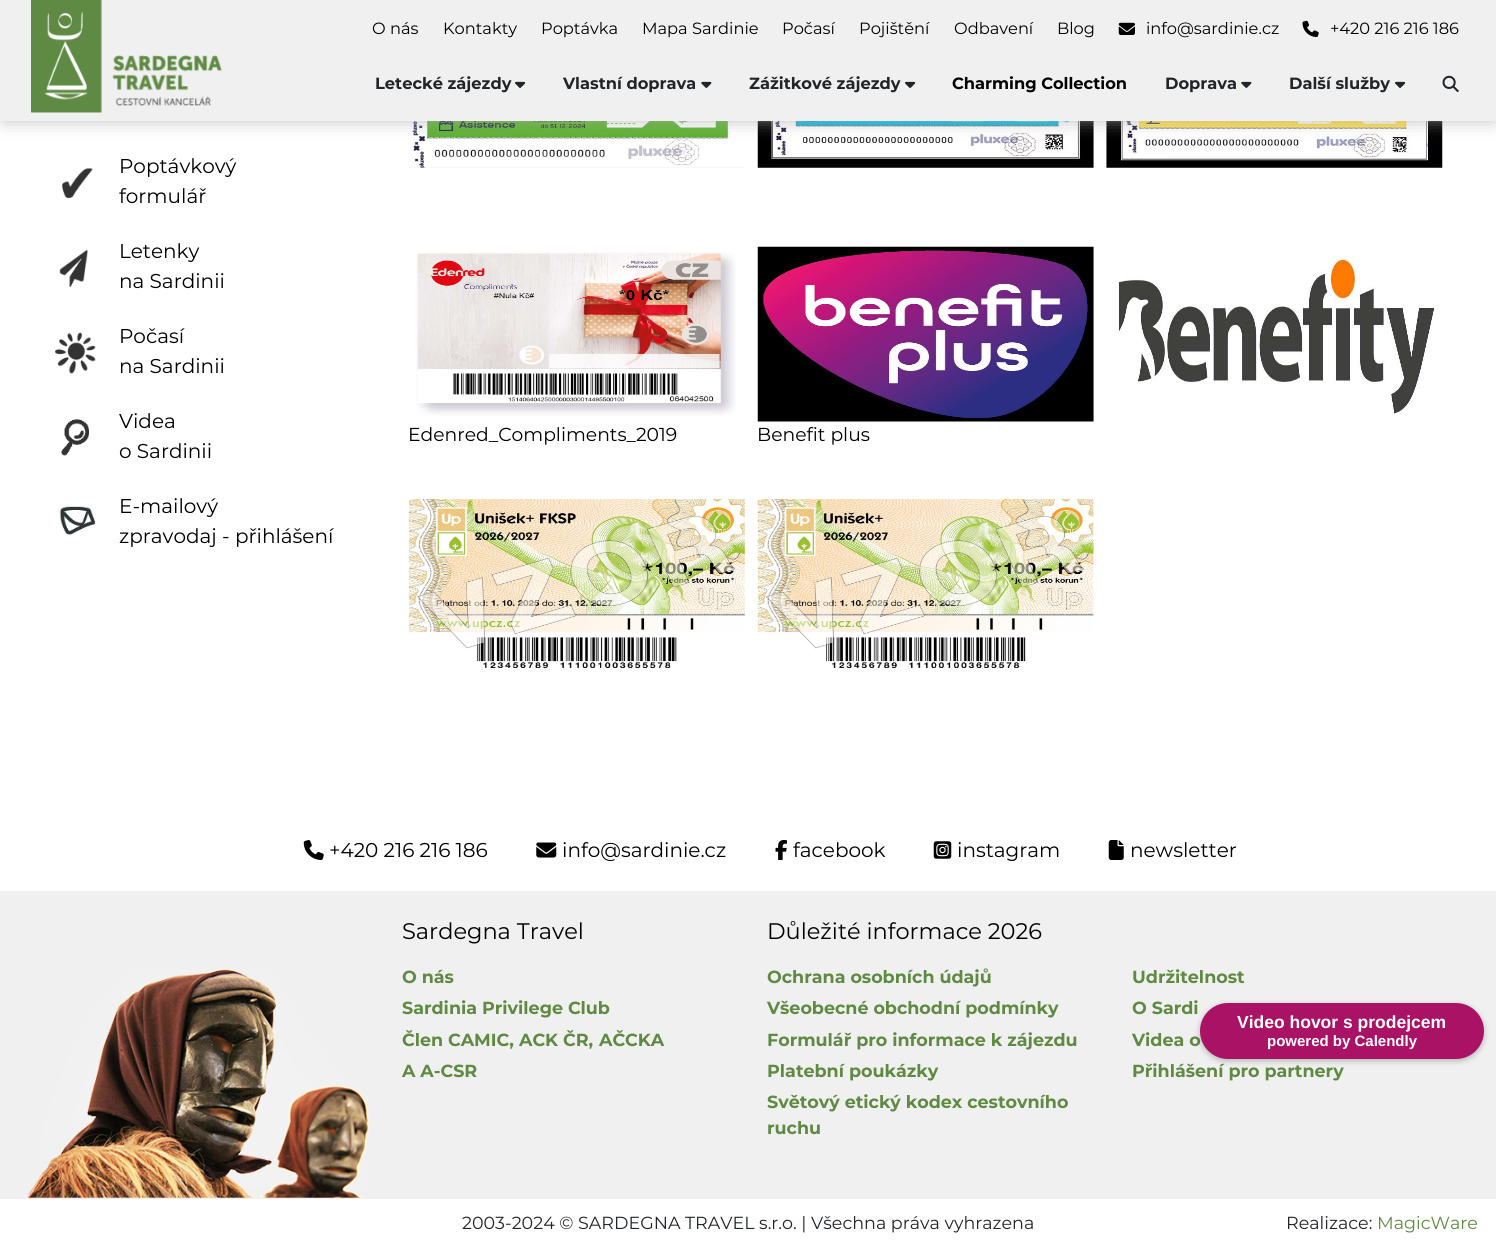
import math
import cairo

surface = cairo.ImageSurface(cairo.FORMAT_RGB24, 1496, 1253)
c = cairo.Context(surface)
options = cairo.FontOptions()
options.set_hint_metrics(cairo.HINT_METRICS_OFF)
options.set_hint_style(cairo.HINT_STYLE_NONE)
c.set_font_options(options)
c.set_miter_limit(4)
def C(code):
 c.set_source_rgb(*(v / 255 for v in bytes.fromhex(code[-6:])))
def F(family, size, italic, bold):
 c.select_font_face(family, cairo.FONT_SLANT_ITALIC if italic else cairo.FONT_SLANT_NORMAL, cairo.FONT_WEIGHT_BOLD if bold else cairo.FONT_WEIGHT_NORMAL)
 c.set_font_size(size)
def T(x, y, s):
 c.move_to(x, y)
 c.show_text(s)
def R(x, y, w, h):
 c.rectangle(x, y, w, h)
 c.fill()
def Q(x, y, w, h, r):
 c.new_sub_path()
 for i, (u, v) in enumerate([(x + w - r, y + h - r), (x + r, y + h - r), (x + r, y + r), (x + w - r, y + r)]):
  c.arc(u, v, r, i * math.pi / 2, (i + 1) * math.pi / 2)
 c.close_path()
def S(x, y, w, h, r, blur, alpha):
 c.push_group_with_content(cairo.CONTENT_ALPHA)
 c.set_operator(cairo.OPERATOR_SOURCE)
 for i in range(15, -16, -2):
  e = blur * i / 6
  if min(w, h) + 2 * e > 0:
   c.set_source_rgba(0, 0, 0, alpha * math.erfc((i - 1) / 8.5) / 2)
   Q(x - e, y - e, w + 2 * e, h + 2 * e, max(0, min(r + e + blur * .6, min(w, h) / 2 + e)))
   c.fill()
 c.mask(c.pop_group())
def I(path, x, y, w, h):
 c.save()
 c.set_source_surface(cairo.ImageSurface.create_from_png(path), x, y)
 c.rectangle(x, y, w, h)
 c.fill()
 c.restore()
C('ffffff')
c.paint()
I('12.png',409,121,336,47)
I('13.png',757,121,337,47)
I('14.png',1106,121,337,47)
C('aaaaaa')
S(4,4,1489,114,0,9.5,1)
C('f0f0f0')
R(0,0,1496,121)
F('Montserrat',16.25,0,0)
C('000000')
T(372,34,'O nás')
T(443,34,'Kontakty')
T(541,34,'Poptávka')
T(642,34,'Mapa Sardinie')
T(782,34,'Počasí')
T(859,34,'Pojištění')
T(954,34,'Odbavení')
T(1057,34,'Blog')
I('1.png',1118,22,17,13)
T(1146,34,'info@sardinie.cz')
I('2.png',1302,20,17,17)
T(1330,34,'+420 216 216 186')
I('3.png',31,0,191,113)
F('Montserrat',16.25,0,1)
C('212529')
T(375,89,'Letecké zájezdy')
I('4.png',515,81,11,7)
T(563,89,'Vlastní doprava')
I('5.png',701,81,11,7)
T(749,89,'Zážitkové zájezdy')
I('4.png',905,81,11,7)
C('000000')
T(952,89,'Charming Collection')
C('212529')
T(1165,89,'Doprava')
I('5.png',1241,81,11,7)
T(1289,89,'Další služby')
I('4.png',1395,81,11,7)
I('6.png',1442,75,17,17)
I('7.png',62,168,31,30)
F('Montserrat',20,0,0)
C('000000')
T(119,173,'Poptávkový')
T(119,203,'formulář')
I('8.png',59,250,29,37)
T(119,258,'Letenky')
T(119,288,'na Sardinii')
I('9.png',55,332,41,42)
T(119,343,'Počasí')
T(119,373,'na Sardinii')
I('10.png',61,419,28,37)
T(119,428,'Videa')
T(119,458,'o Sardinii')
I('11.png',59,506,37,29)
T(119,513,'E-mailový')
T(119,543,'zpravodaj - přihlášení')
I('15.png',1118,256,316,158)
I('16.png',416,252,320,164)
F('Montserrat',18.75,0,0)
T(408,441,'Edenred_Compliments_2019')
I('17.png',757,246,337,176)
T(757,441,'Benefit plus')
I('18.png',408,499,337,170)
I('19.png',757,499,337,170)
I('20.png',303,840,21,20)
F('Montserrat',20,0,0)
T(329,857,'+420 216 216 186')
I('21.png',536,842,21,16)
T(562,857,'info@sardinie.cz')
I('22.png',775,840,12,20)
T(793,857,'facebook')
I('23.png',933,841,19,18)
T(957,857,'instagram')
I('24.png',1108,840,16,20)
T(1130,857,'newsletter')
C('f0f0f0')
R(0,891,1496,308)
I('25.png',27,969,342,229)
F('Montserrat',22.5,0,0)
C('000000')
T(402,939,'Sardegna Travel')
F('Montserrat',17.5,0,1)
C('5f8a43')
T(402,983,'O nás')
T(402,1014,'Sardinia Privilege Club')
T(402,1046,'Člen CAMIC,')
T(519,1046,'ACK ČR,')
T(599,1046,'AČCKA')
T(402,1077,'A A-CSR')
F('Montserrat',22.5,0,0)
C('000000')
T(767,939,'Důležité informace 2026')
F('Montserrat',17.5,0,1)
C('5f8a43')
T(767,983,'Ochrana osobních údajů')
T(767,1014,'Všeobecné obchodní podmínky')
T(767,1046,'Formulář pro informace k zájezdu')
T(767,1077,'Platební poukázky')
T(767,1108,'Světový etický kodex cestovního')
T(767,1134,'ruchu')
T(1132,983,'Udržitelnost')
T(1132,1014,'O Sardi')
T(1132,1046,'Videa o')
T(1132,1077,'Přihlášení pro partnery')
F('Montserrat',17.5,0,0)
C('212529')
T(462,1229,'2003-2024 © SARDEGNA TRAVEL s.r.o. | Všechna práva vyhrazena')
T(1286,1229,'Realizace:')
C('5f8a43')
T(1377,1229,'MagicWare')
C('000000')
S(1200,1005,284,56,28,3,.25)
C('aa1266')
Q(1200,1003,284,56,28)
c.fill()
F('Liberation Sans',17.5,0,1)
C('ffffff')
T(1237,1028,'Video hovor s prodejcem')
F('Liberation Sans',15,0,1)
T(1267,1046,'powered by Calendly')
surface.write_to_png('o.png')
